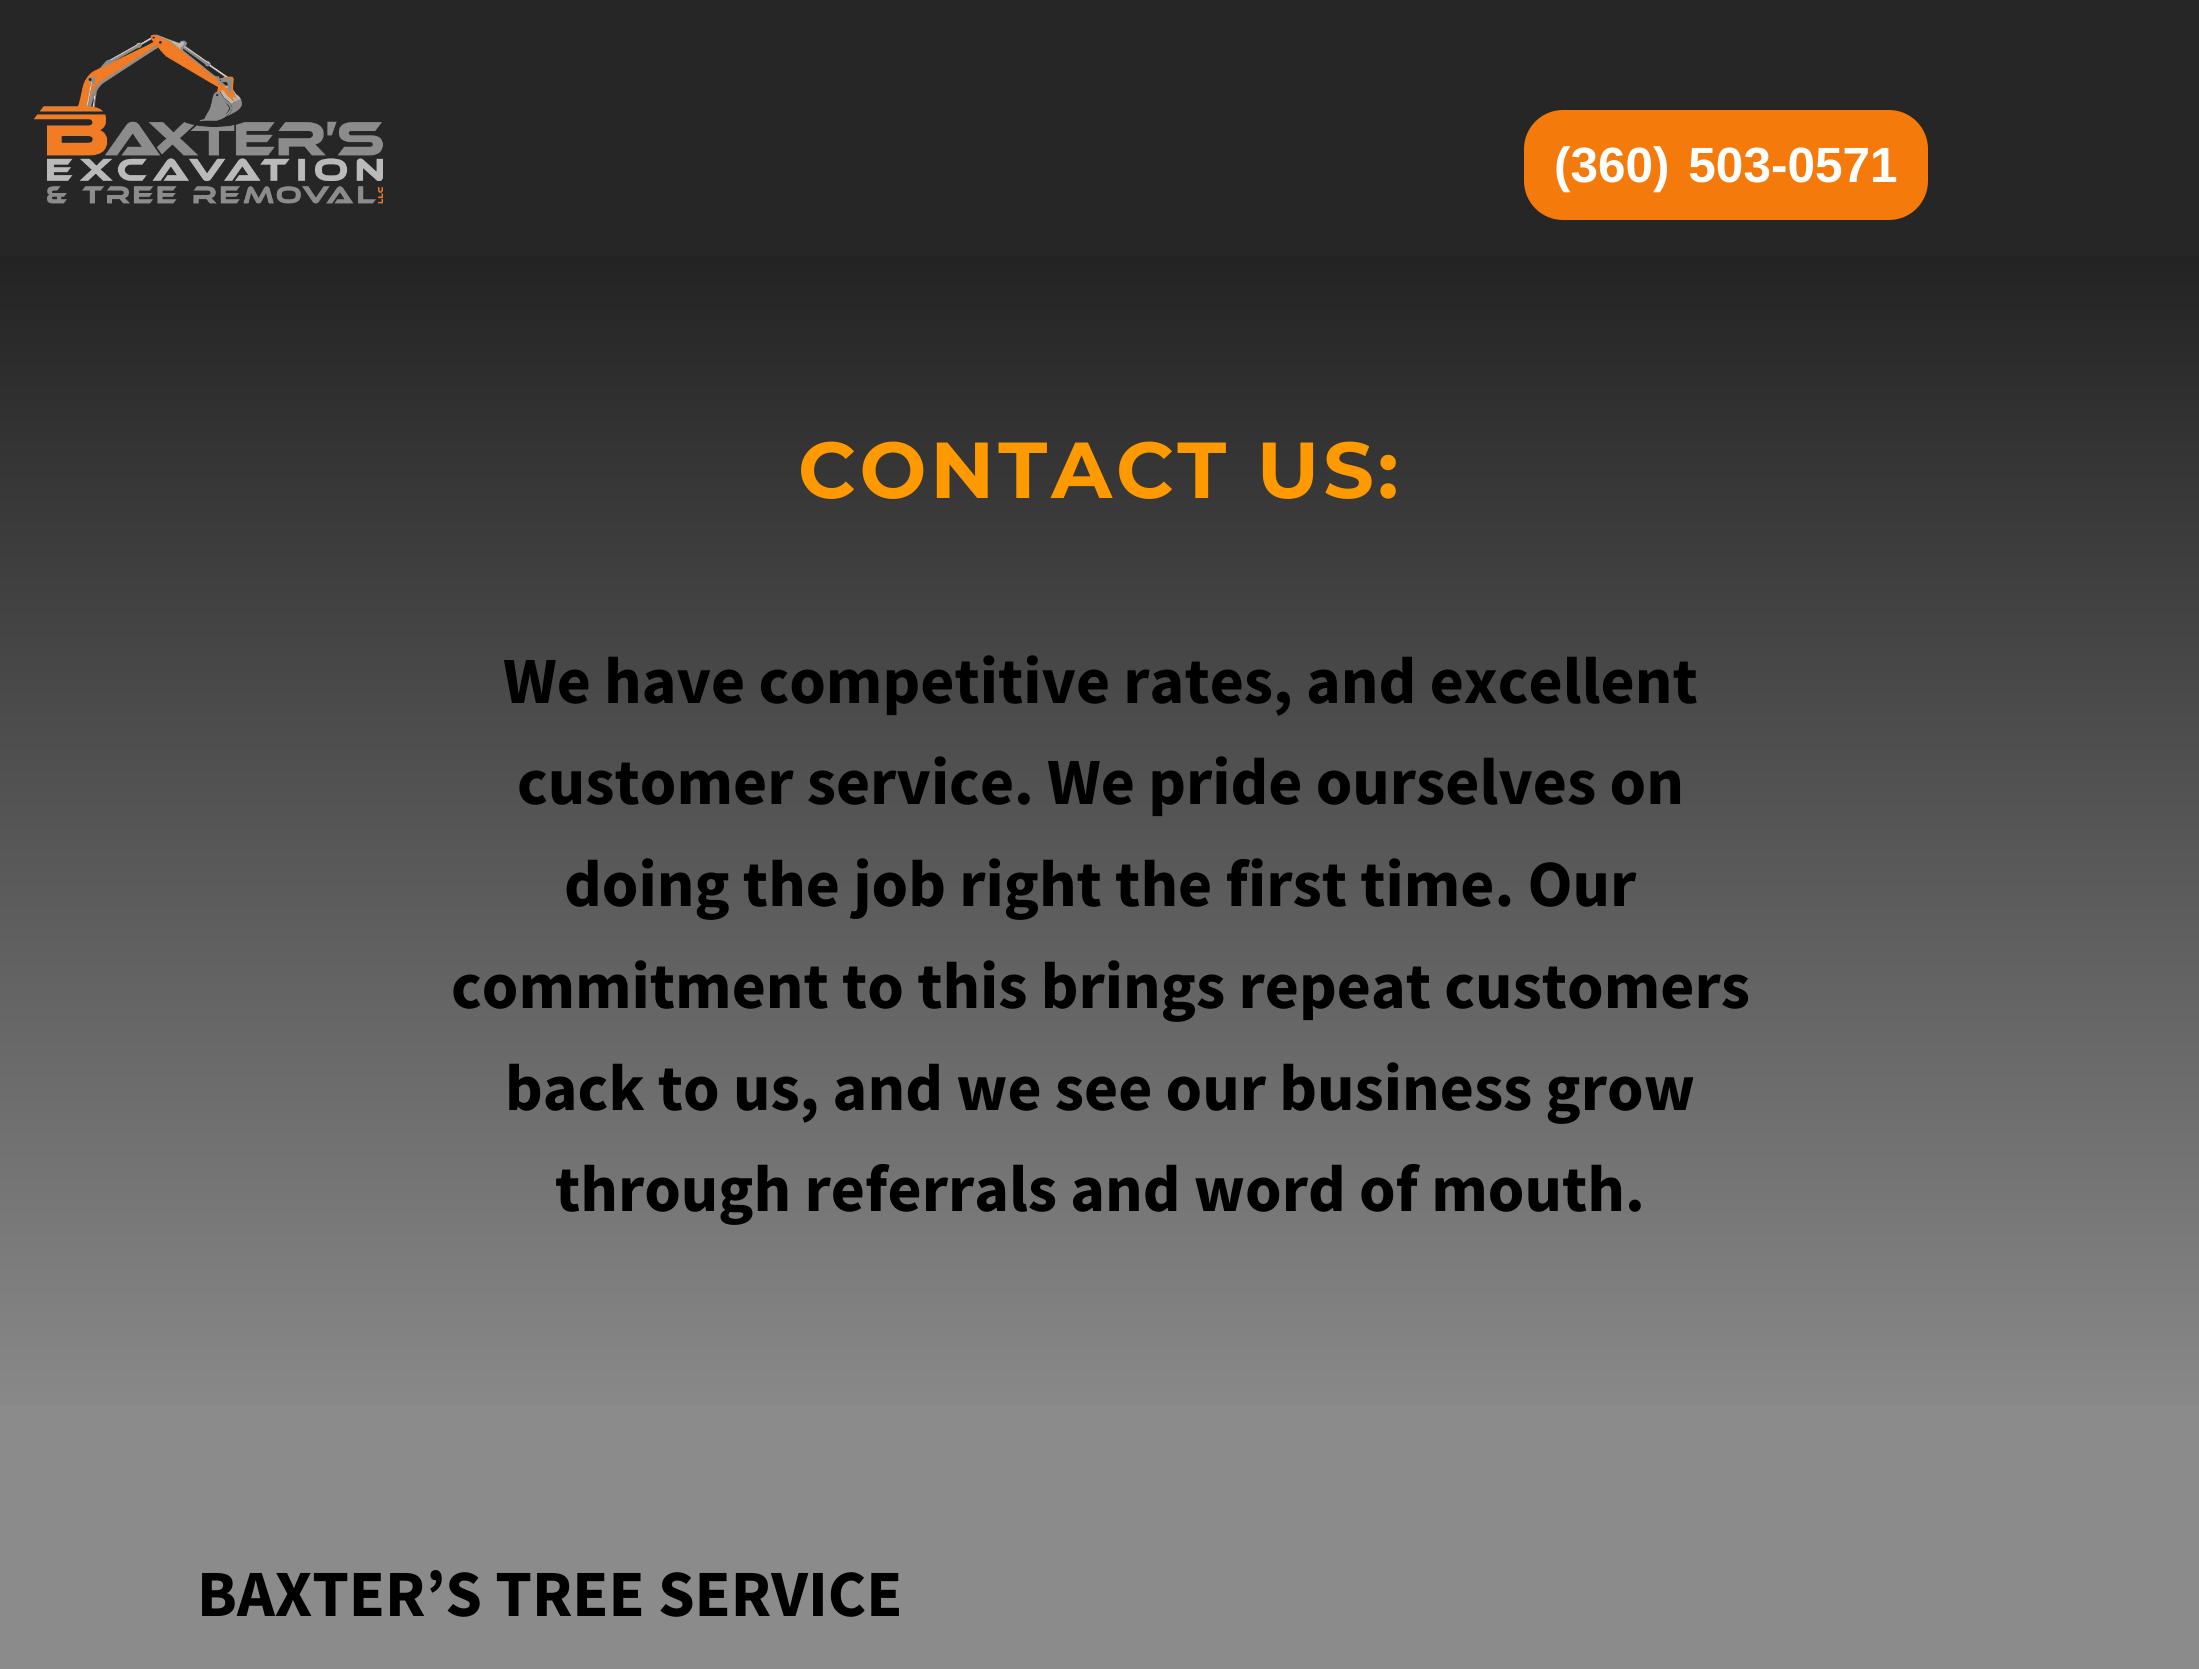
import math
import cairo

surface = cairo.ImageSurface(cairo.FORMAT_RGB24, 2199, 1669)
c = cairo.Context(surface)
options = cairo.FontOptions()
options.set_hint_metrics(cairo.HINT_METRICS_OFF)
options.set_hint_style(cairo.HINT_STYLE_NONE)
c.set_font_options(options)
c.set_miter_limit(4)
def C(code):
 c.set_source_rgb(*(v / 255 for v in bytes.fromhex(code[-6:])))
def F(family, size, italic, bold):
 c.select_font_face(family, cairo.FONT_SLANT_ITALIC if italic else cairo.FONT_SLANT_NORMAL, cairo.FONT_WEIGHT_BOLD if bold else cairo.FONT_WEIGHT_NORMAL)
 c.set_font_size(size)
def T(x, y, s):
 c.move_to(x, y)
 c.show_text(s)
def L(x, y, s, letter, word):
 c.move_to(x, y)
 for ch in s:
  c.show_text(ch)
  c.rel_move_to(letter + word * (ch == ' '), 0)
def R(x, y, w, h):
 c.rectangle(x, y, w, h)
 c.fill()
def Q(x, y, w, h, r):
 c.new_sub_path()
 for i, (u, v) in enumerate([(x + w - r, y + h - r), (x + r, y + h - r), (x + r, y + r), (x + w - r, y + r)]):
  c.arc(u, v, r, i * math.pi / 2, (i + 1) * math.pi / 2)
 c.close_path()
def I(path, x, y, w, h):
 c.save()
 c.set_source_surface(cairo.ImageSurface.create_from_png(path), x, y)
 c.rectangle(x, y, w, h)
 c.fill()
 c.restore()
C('8b8b8b')
c.paint()
C('262626')
R(0,0,2199,256)
I('1.png',34,34,349,170)
C('f47b0b')
Q(1524,110,404,110,39)
c.fill()
F('Liberation Sans',49.5,0,1)
C('ffffff')
L(1554,182,'(360) 503-0571',0,5)
gradient = cairo.LinearGradient(1100,256,1100,1433)
gradient.add_color_stop_rgba(0,0.137,0.137,0.137,1)
gradient.add_color_stop_rgba(1,0.545,0.545,0.545,1)
c.set_source(gradient)
R(0,256,2199,1149)
F('Montserrat',79.25,0,1)
C('ff9900')
L(798,498,'CONTACT US:',4,0)
F('Source Sans Pro',66,0,1)
C('000000')
T(503,703,'We have competitive rates, and excellent')
T(517,804,'customer service. We pride ourselves on')
T(564,906,'doing the job right the first time. Our')
T(451,1008,'commitment to this brings repeat customers')
T(505,1110,'back to us, and we see our business grow')
T(555,1211,'through referrals and word of mouth.')
T(197,1616,'BAXTER’S TREE SERVICE')
surface.write_to_png('o.png')
